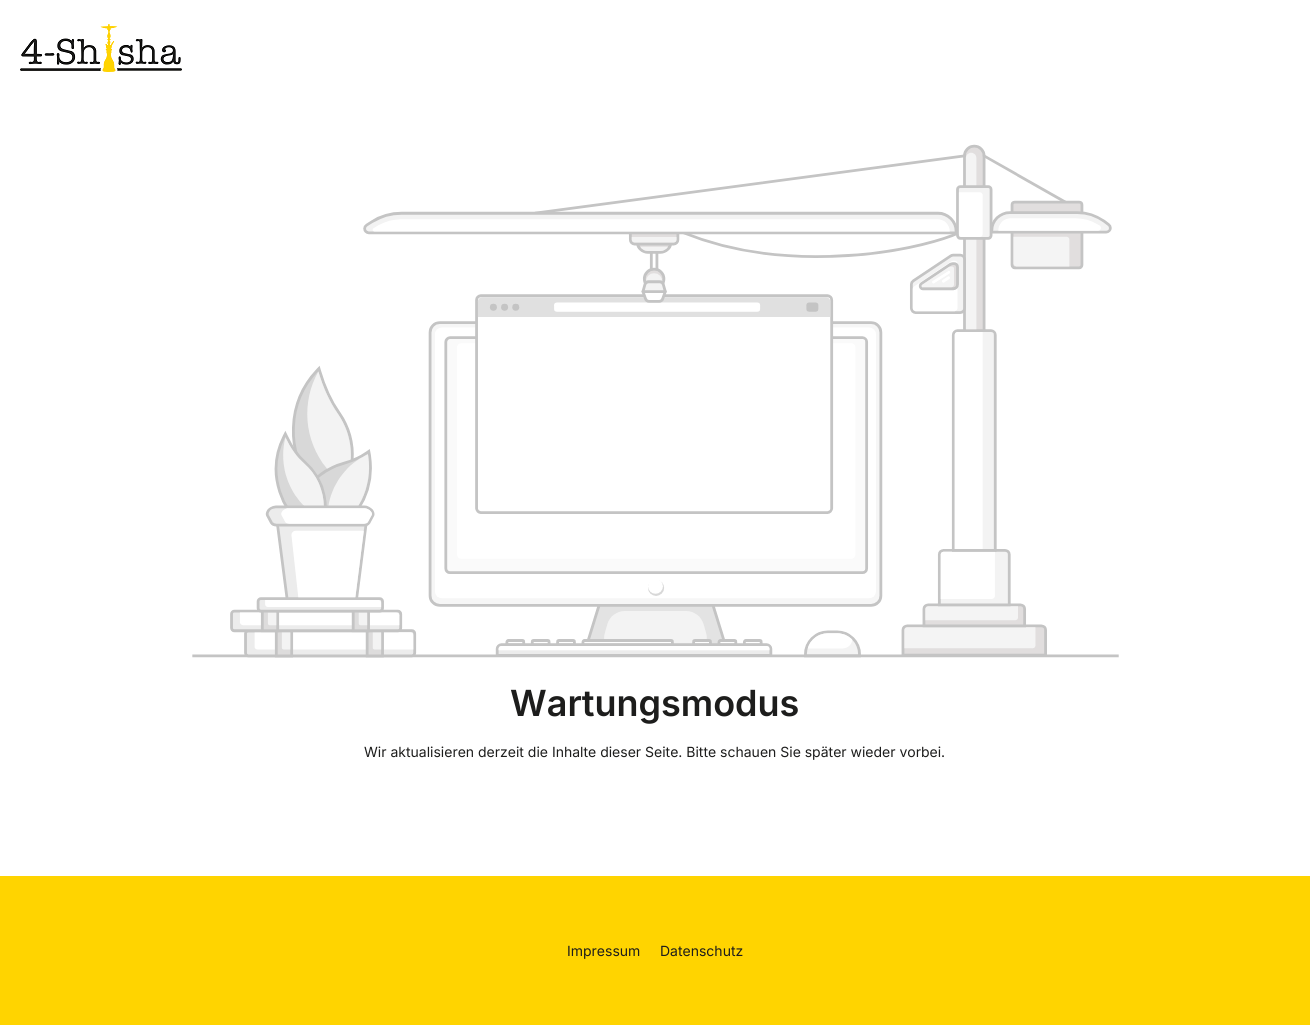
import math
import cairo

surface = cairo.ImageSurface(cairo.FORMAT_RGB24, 1310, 1025)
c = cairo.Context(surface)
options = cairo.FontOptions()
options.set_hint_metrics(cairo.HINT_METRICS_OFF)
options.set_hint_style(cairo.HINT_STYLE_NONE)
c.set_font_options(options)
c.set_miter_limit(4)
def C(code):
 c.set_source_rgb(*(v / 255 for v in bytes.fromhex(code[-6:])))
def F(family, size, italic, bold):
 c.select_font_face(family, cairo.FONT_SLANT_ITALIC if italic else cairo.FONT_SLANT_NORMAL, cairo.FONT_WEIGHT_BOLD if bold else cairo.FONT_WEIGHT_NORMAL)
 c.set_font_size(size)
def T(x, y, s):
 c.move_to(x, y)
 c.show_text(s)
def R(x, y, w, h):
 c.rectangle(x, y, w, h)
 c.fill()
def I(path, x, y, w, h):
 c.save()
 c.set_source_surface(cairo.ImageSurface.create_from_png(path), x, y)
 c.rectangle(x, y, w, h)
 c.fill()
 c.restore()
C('ffffff')
c.paint()
I('1.png',20,24,162,48)
I('2.png',192,144,927,514)
F('Inter SemiBold',36,0,0)
C('1d1d1c')
T(510,716,'Wartungsmodus')
F('Inter',14,0,0)
T(364,757,'Wir aktualisieren derzeit die Inhalte dieser Seite. Bitte schauen Sie später wieder vorbei.')
C('ffd400')
R(0,876,1310,149)
C('1d1d1c')
T(567,956,'Impressum')
T(660,956,'Datenschutz')
surface.write_to_png('o.png')
